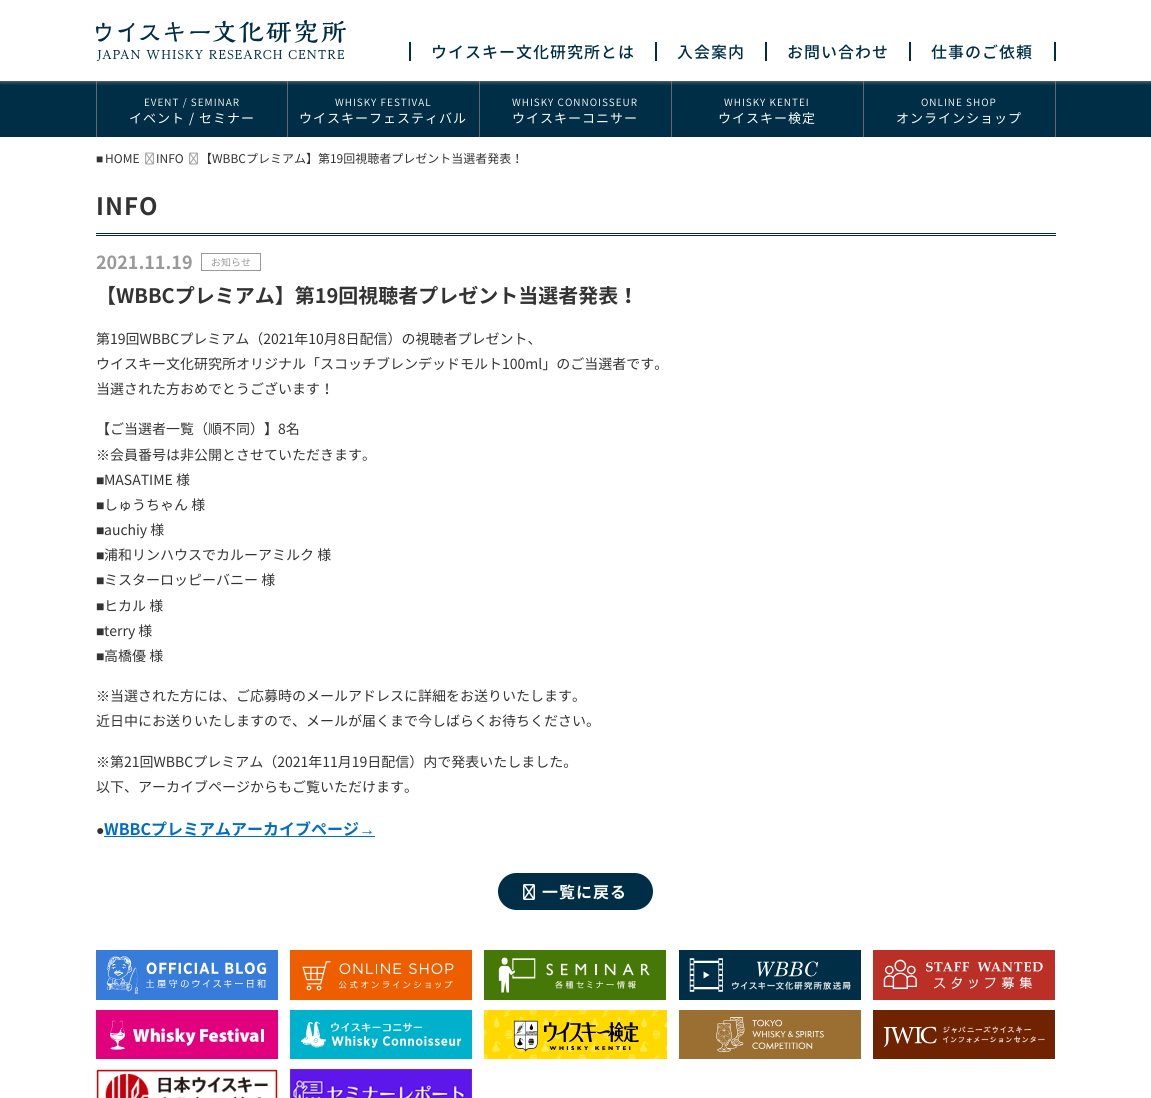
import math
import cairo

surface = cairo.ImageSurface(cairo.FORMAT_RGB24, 1151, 1098)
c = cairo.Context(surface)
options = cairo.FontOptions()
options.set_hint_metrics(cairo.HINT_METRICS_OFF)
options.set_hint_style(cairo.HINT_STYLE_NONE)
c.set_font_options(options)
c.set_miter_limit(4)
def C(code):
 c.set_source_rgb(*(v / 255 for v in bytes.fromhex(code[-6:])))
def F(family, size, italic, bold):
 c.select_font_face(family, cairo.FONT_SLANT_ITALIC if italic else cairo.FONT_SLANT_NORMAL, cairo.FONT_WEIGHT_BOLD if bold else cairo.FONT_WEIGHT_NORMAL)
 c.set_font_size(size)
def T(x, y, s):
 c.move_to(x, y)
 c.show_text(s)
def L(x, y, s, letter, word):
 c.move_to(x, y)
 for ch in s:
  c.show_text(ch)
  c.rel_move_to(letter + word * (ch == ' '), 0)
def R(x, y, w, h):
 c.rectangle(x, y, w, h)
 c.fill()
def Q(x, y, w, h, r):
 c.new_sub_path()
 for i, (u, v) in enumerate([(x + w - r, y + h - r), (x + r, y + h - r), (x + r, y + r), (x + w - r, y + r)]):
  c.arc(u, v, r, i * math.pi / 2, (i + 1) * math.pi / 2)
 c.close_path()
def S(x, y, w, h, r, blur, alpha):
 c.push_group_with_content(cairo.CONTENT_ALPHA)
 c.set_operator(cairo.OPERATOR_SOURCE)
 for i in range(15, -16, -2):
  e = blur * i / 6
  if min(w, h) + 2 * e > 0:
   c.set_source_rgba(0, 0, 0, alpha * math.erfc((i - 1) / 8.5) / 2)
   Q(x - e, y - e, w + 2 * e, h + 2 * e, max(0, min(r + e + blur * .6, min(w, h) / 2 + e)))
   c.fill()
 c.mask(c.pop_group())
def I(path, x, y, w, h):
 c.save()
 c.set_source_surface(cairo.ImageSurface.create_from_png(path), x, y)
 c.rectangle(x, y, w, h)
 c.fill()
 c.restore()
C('ffffff')
c.paint()
C('002e46')
R(0,81,1151,56)
C('666666')
R(287,80,1,57)
R(96,80,1,57)
R(479,80,1,57)
R(671,80,1,57)
R(863,80,1,57)
R(1055,80,1,57)
C('999999')
S(0,0,1151,81,0,2.5,1)
C('ffffff')
R(0,0,1151,81)
I('1.png',96,20,250,41)
C('002e46')
R(655,42,2,19)
R(409,42,2,19)
F('Noto Sans JP Medium',16,0,0)
L(431,58,'ウイスキー文化研究所とは',1,0)
R(765,42,2,19)
L(677,58,'入会案内',1,0)
R(909,42,2,19)
L(787,58,'お問い合わせ',1,0)
R(1054,42,2,19)
L(931,58,'仕事のご依頼',1,0)
F('Noto Sans JP Light',10,0,0)
C('ffffff')
L(144,106,'EVENT / SEMINAR',1,0)
F('Noto Sans JP',13,0,0)
L(129,123,'イベント / セミナー',1,0)
F('Noto Sans JP Light',10,0,0)
L(335,106,'WHISKY FESTIVAL',1,0)
F('Noto Sans JP',13,0,0)
L(299,123,'ウイスキーフェスティバル',1,0)
F('Noto Sans JP Light',10,0,0)
L(512,106,'WHISKY CONNOISSEUR',1,0)
F('Noto Sans JP',13,0,0)
L(512,123,'ウイスキーコニサー',1,0)
F('Noto Sans JP Light',10,0,0)
L(724,106,'WHISKY KENTEI',1,0)
F('Noto Sans JP',13,0,0)
L(718,123,'ウイスキー検定',1,0)
F('Noto Sans JP Light',10,0,0)
L(921,106,'ONLINE SHOP',1,0)
F('Noto Sans JP',13,0,0)
L(896,123,'オンラインショップ',1,0)
F('Liberation Sans',12,0,0)
C('333333')
T(96,163,'■')
F('Noto Sans JP',12,0,0)
T(105,163,'HOME')
I('2.png',145,152,9,13)
T(156,163,'INFO')
I('2.png',189,152,9,13)
T(200,163,'【WBBCプレミアム】第19回視聴者プレゼント当選者発表！')
C('002e46')
R(96,233,960,1)
R(96,235,960,1)
F('Noto Sans JP',24,0,1)
C('333333')
L(96,215,'INFO',1,0)
F('Noto Sans JP',18,0,1)
C('999999')
T(96,269,'2021.11.19')
c.rectangle(201.5,253.5,59,17)
c.set_line_width(1)
c.stroke()
F('Noto Sans JP',10,0,0)
T(211,266,'お知らせ')
F('Noto Sans JP',20,0,1)
C('333333')
T(96,303,'【WBBCプレミアム】第19回視聴者プレゼント当選者発表！')
F('Noto Sans JP',14,0,0)
T(96,344,'第19回WBBCプレミアム（2021年10月8日配信）の視聴者プレゼント、')
T(96,369,'ウイスキー文化研究所オリジナル「スコッチブレンデッドモルト100ml」のご当選者です。')
T(96,394,'当選された方おめでとうございます！')
T(96,434,'【ご当選者一覧（順不同）】8名')
F('WenQuanYi Zen Hei Medium',14,0,0)
T(96,460,'※')
F('Noto Sans JP',14,0,0)
T(110,460,'会員番号は非公開とさせていただきます。')
F('Liberation Sans',14,0,0)
T(96,485,'■')
F('Noto Sans JP',14,0,0)
T(104,485,'MASATIME 様')
F('Liberation Sans',14,0,0)
T(96,510,'■')
F('Noto Sans JP',14,0,0)
T(104,510,'しゅうちゃん 様')
F('Liberation Sans',14,0,0)
T(96,535,'■')
F('Noto Sans JP',14,0,0)
T(104,535,'auchiy 様')
F('Liberation Sans',14,0,0)
T(96,560,'■')
F('Noto Sans JP',14,0,0)
T(104,560,'浦和リンハウスでカルーアミルク 様')
F('Liberation Sans',14,0,0)
T(96,585,'■')
F('Noto Sans JP',14,0,0)
T(104,585,'ミスターロッピーバニー 様')
F('Liberation Sans',14,0,0)
T(96,611,'■')
F('Noto Sans JP',14,0,0)
T(104,611,'ヒカル 様')
F('Liberation Sans',14,0,0)
T(96,636,'■')
F('Noto Sans JP',14,0,0)
T(104,636,'terry 様')
F('Liberation Sans',14,0,0)
T(96,661,'■')
F('Noto Sans JP',14,0,0)
T(104,661,'高橋優 様')
F('WenQuanYi Zen Hei Medium',14,0,0)
T(96,701,'※')
F('Noto Sans JP',14,0,0)
T(110,701,'当選された方には、ご応募時のメールアドレスに詳細をお送りいたします。')
T(96,726,'近日中にお送りいたしますので、メールが届くまで今しばらくお待ちください。')
F('WenQuanYi Zen Hei Medium',14,0,0)
T(96,767,'※')
F('Noto Sans JP',14,0,0)
T(110,767,'第21回WBBCプレミアム（2021年11月19日配信）内で発表いたしました。')
T(96,792,'以下、アーカイブページからもご覧いただけます。')
F('Liberation Sans',14,0,0)
T(96,835,'●')
F('Noto Sans JP',16,0,1)
C('006dc7')
T(104,835,'WBBCプレミアムアーカイブページ')
F('Liberation Sans',16,0,1)
T(359,835,'→')
R(104,836,271,1)
C('002e46')
Q(498,873,155,37,18.5)
c.fill()
I('3.png',523,884,12,16)
F('Noto Sans JP',16,0,1)
C('ffffff')
L(542,898,'一覧に戻る',1,0)
I('4.png',96,950,182,50)
I('5.png',290,950,182,50)
I('6.png',484,950,182,50)
I('7.png',679,950,182,50)
I('8.png',873,950,182,50)
I('9.png',96,1010,182,49)
I('10.png',290,1010,182,49)
I('11.png',484,1010,183,49)
I('12.png',679,1010,182,49)
I('13.png',873,1010,182,49)
I('14.png',96,1069,182,29)
I('15.png',290,1069,182,29)
surface.write_to_png('o.png')
